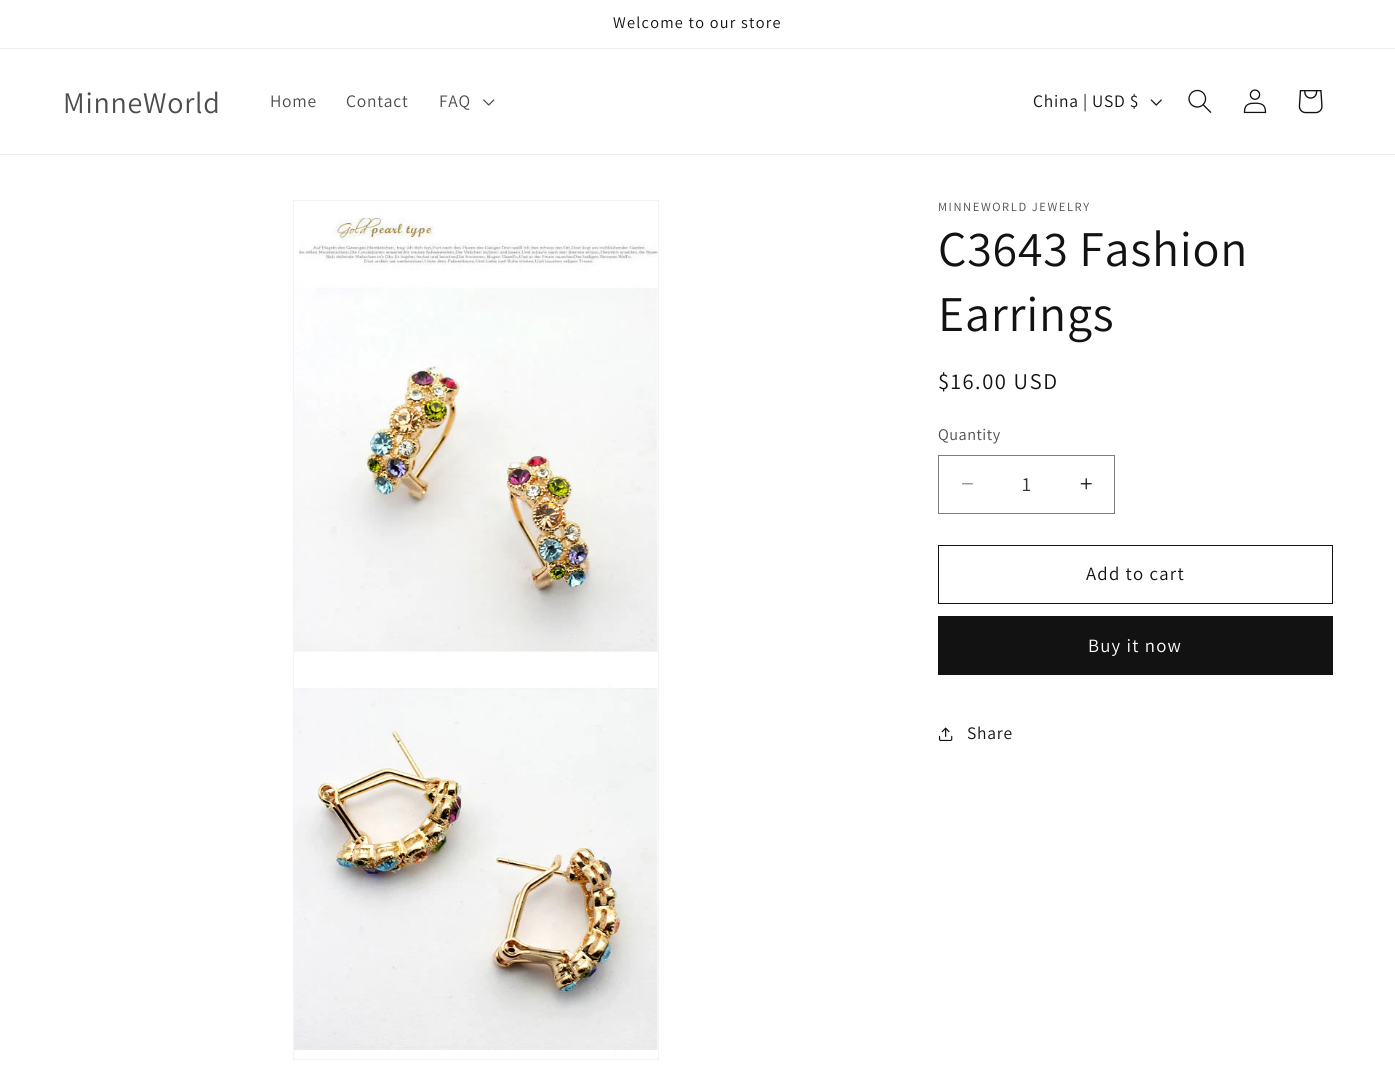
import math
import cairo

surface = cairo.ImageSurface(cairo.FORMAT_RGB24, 1395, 1076)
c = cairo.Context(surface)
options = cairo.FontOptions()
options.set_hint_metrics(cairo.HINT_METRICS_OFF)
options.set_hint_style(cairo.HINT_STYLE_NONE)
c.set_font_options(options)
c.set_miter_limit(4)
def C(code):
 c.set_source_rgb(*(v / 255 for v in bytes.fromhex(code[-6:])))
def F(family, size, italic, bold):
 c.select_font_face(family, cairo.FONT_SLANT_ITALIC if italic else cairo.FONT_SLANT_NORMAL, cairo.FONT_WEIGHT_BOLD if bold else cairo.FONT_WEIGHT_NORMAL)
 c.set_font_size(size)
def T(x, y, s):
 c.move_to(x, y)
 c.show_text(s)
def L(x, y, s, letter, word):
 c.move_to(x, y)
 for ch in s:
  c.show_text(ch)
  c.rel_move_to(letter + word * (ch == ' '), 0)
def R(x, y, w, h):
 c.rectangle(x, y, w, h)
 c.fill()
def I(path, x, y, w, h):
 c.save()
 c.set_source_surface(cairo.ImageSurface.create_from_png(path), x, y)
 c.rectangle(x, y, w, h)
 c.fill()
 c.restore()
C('ffffff')
c.paint()
C('ececec')
R(0,48,1395,1)
F('Assistant',16.25,0,0)
C('121212')
L(613,28,'Welcome to our store',1.25,0)
C('ececec')
R(0,154,1395,1)
F('Assistant',30,0,0)
C('4d4d4d')
L(63,113,'MinneWorld',.75,0)
F('Assistant',17.5,0,0)
L(270,107,'Home',.75,0)
L(346,107,'Contact',.75,0)
L(439,107,'FAQ',.75,0)
I('1.png',483,99,12,7)
C('121212')
L(1033,107,'China | USD $',.75,0)
I('2.png',1150,99,12,7)
I('3.png',1188,89,24,24)
I('4.png',1243,89,24,25)
I('5.png',1298,90,25,24)
c.rectangle(293.5,200.5,365,859)
C('f3f3f3')
c.set_line_width(1)
c.stroke()
I('6.png',294,216,364,835)
F('Assistant',12.5,0,0)
C('4d4d4d')
L(938,211,'MINNEWORLD JEWELRY',1.6,0)
F('Assistant',50,0,0)
C('121212')
L(938,266,'C3643 Fashion',.75,0)
L(938,331,'Earrings',.75,0)
F('Assistant',22.5,0,0)
L(938,389,'$16.00 USD',1.6,0)
F('Assistant',16.25,0,0)
C('4d4d4d')
L(938,440,'Quantity',.5,0)
I('7.png',962,483,11,2)
I('8.png',1080,478,12,12)
c.rectangle(938.5,455.5,176,58)
C('7d7d7d')
c.stroke()
F('Assistant',20,0,0)
C('363636')
T(1022,491,'1')
c.rectangle(938.5,545.5,394,58)
C('121212')
c.stroke()
F('Assistant',18.75,0,0)
L(1086,580,'Add to cart',1.25,0)
R(938,616,395,59)
C('ffffff')
L(1088,652,'Buy it now',1.25,0)
I('9.png',938,727,15,14)
F('Assistant',17.5,0,0)
C('121212')
L(967,739,'Share',.75,0)
surface.write_to_png('o.png')
